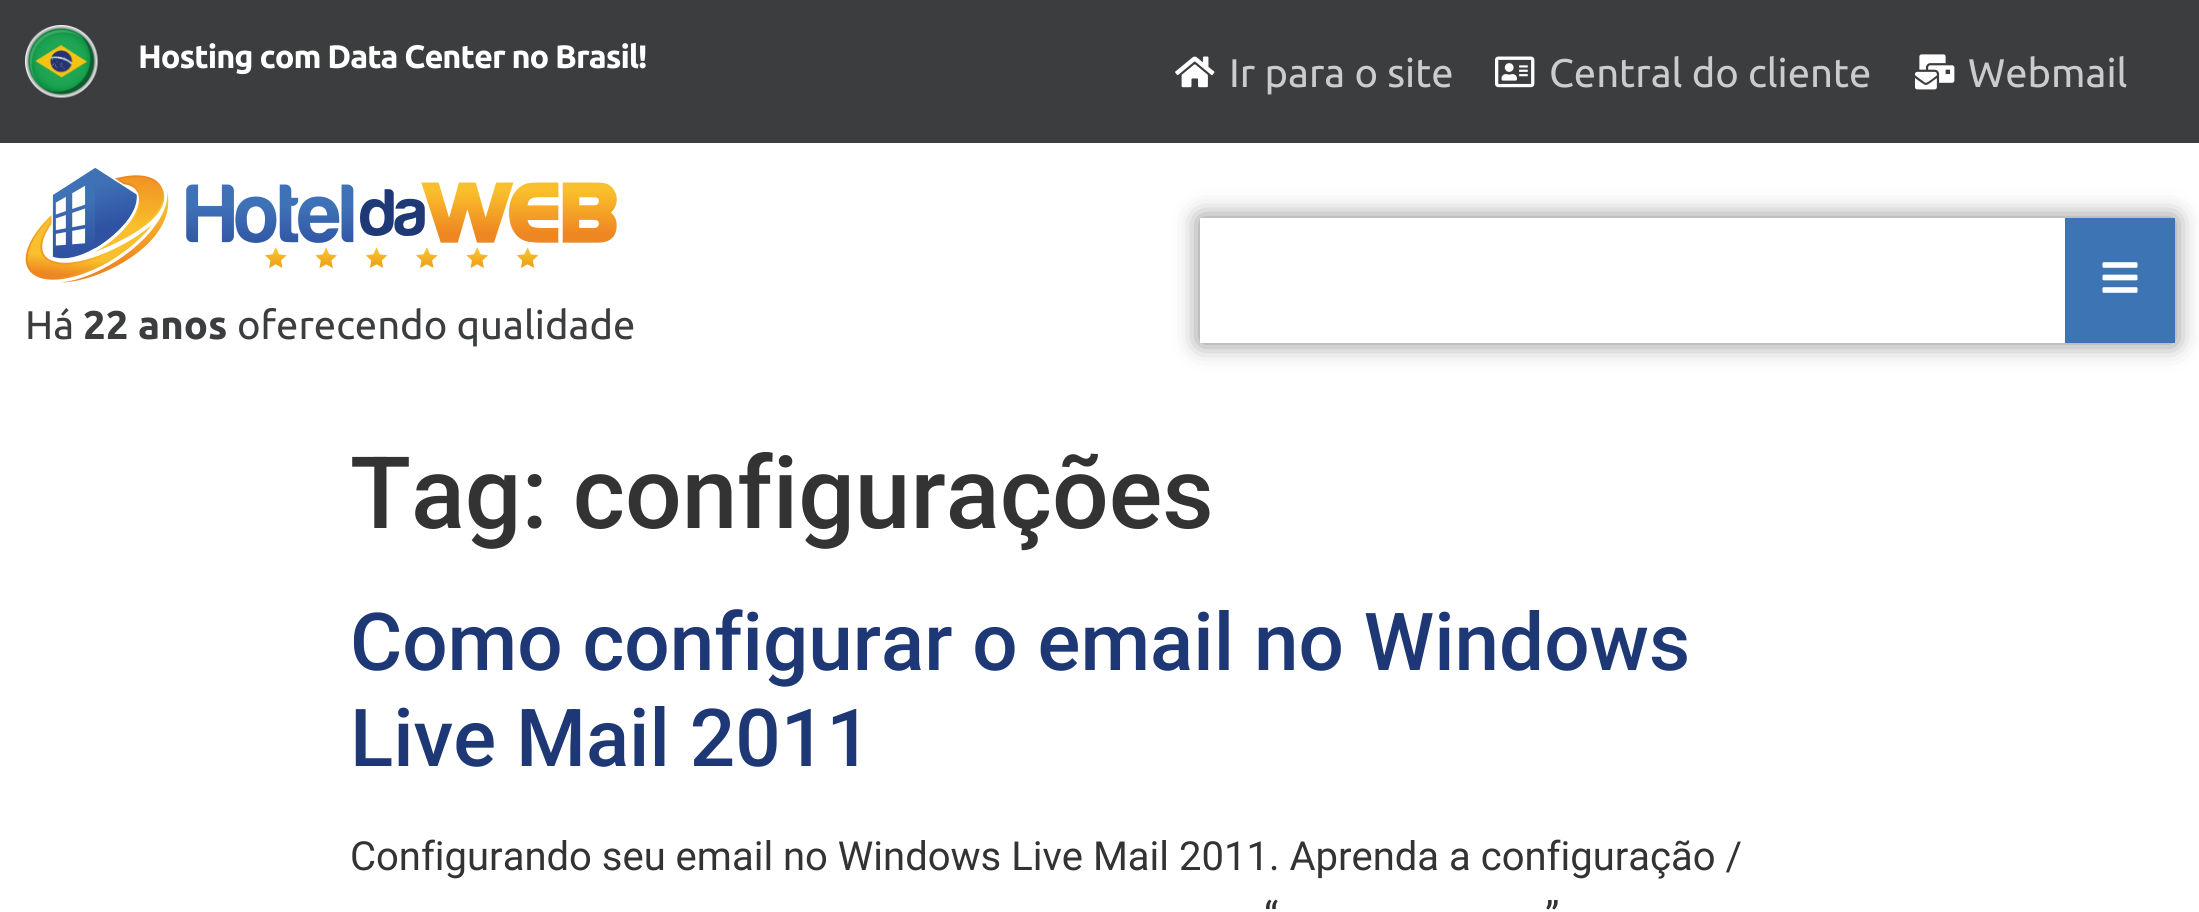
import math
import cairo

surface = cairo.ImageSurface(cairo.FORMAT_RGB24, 2199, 912)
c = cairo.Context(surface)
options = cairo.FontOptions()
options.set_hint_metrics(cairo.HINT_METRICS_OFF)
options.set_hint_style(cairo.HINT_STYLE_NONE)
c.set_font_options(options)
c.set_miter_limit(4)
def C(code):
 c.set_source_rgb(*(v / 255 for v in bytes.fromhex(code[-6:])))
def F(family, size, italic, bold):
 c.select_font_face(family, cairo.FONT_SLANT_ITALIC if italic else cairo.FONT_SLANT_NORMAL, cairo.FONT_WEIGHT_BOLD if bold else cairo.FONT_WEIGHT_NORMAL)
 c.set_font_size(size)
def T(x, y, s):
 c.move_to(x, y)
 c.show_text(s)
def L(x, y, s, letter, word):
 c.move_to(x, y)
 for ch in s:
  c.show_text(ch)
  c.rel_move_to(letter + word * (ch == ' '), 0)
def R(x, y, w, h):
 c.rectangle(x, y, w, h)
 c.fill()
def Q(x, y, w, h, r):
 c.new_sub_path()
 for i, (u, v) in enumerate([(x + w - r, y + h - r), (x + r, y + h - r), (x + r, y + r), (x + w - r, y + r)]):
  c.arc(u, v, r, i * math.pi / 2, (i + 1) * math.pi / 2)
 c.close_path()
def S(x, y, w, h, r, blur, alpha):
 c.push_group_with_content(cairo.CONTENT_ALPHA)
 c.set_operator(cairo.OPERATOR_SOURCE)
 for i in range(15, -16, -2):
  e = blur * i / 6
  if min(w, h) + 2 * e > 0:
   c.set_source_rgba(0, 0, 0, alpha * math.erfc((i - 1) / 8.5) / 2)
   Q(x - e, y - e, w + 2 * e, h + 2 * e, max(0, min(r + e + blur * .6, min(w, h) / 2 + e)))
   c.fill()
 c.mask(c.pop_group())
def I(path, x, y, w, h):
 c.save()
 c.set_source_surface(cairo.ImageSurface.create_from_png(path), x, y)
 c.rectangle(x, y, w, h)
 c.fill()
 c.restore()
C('ffffff')
c.paint()
C('3b3d3f')
R(0,0,2199,143)
I('1.png',25,25,73,73)
F('Ubuntu',32.5,0,1)
C('ffffff')
L(138,68,'Hosting com Data Center no Brasil!',-1,0)
I('2.png',1175,56,40,32)
F('Ubuntu',40,0,0)
C('cccccc')
T(1229,87,'Ir para o site')
I('3.png',1495,56,40,32)
T(1549,87,'Central do cliente')
I('4.png',1915,54,40,36)
T(1968,87,'Webmail')
I('5.png',25,168,592,115)
C('3b3d3f')
T(25,339,'Há')
F('Ubuntu',40,0,1)
T(83,339,'22 anos')
F('Ubuntu',40,0,0)
T(237,339,'oferecendo qualidade')
C('000000')
S(1200,218,975,125,0,12.5,.5)
C('ffffff')
R(1200,218,865,125)
C('3c74b4')
R(2065,218,110,125)
I('6.png',2102,262,36,31)
F('Roboto Medium',100,0,0)
C('333333')
T(350,528,'Tag: configurações')
F('Roboto Medium',80,0,0)
C('1e3876')
T(350,670,'Como configurar o email no Windows')
T(350,766,'Live Mail 2011')
F('Roboto',40,0,0)
C('333333')
T(350,870,'Configurando seu email no Windows Live Mail 2011. Aprenda a configuração /')
T(1264,930,'“')
T(1545,930,'”')
surface.write_to_png('o.png')
